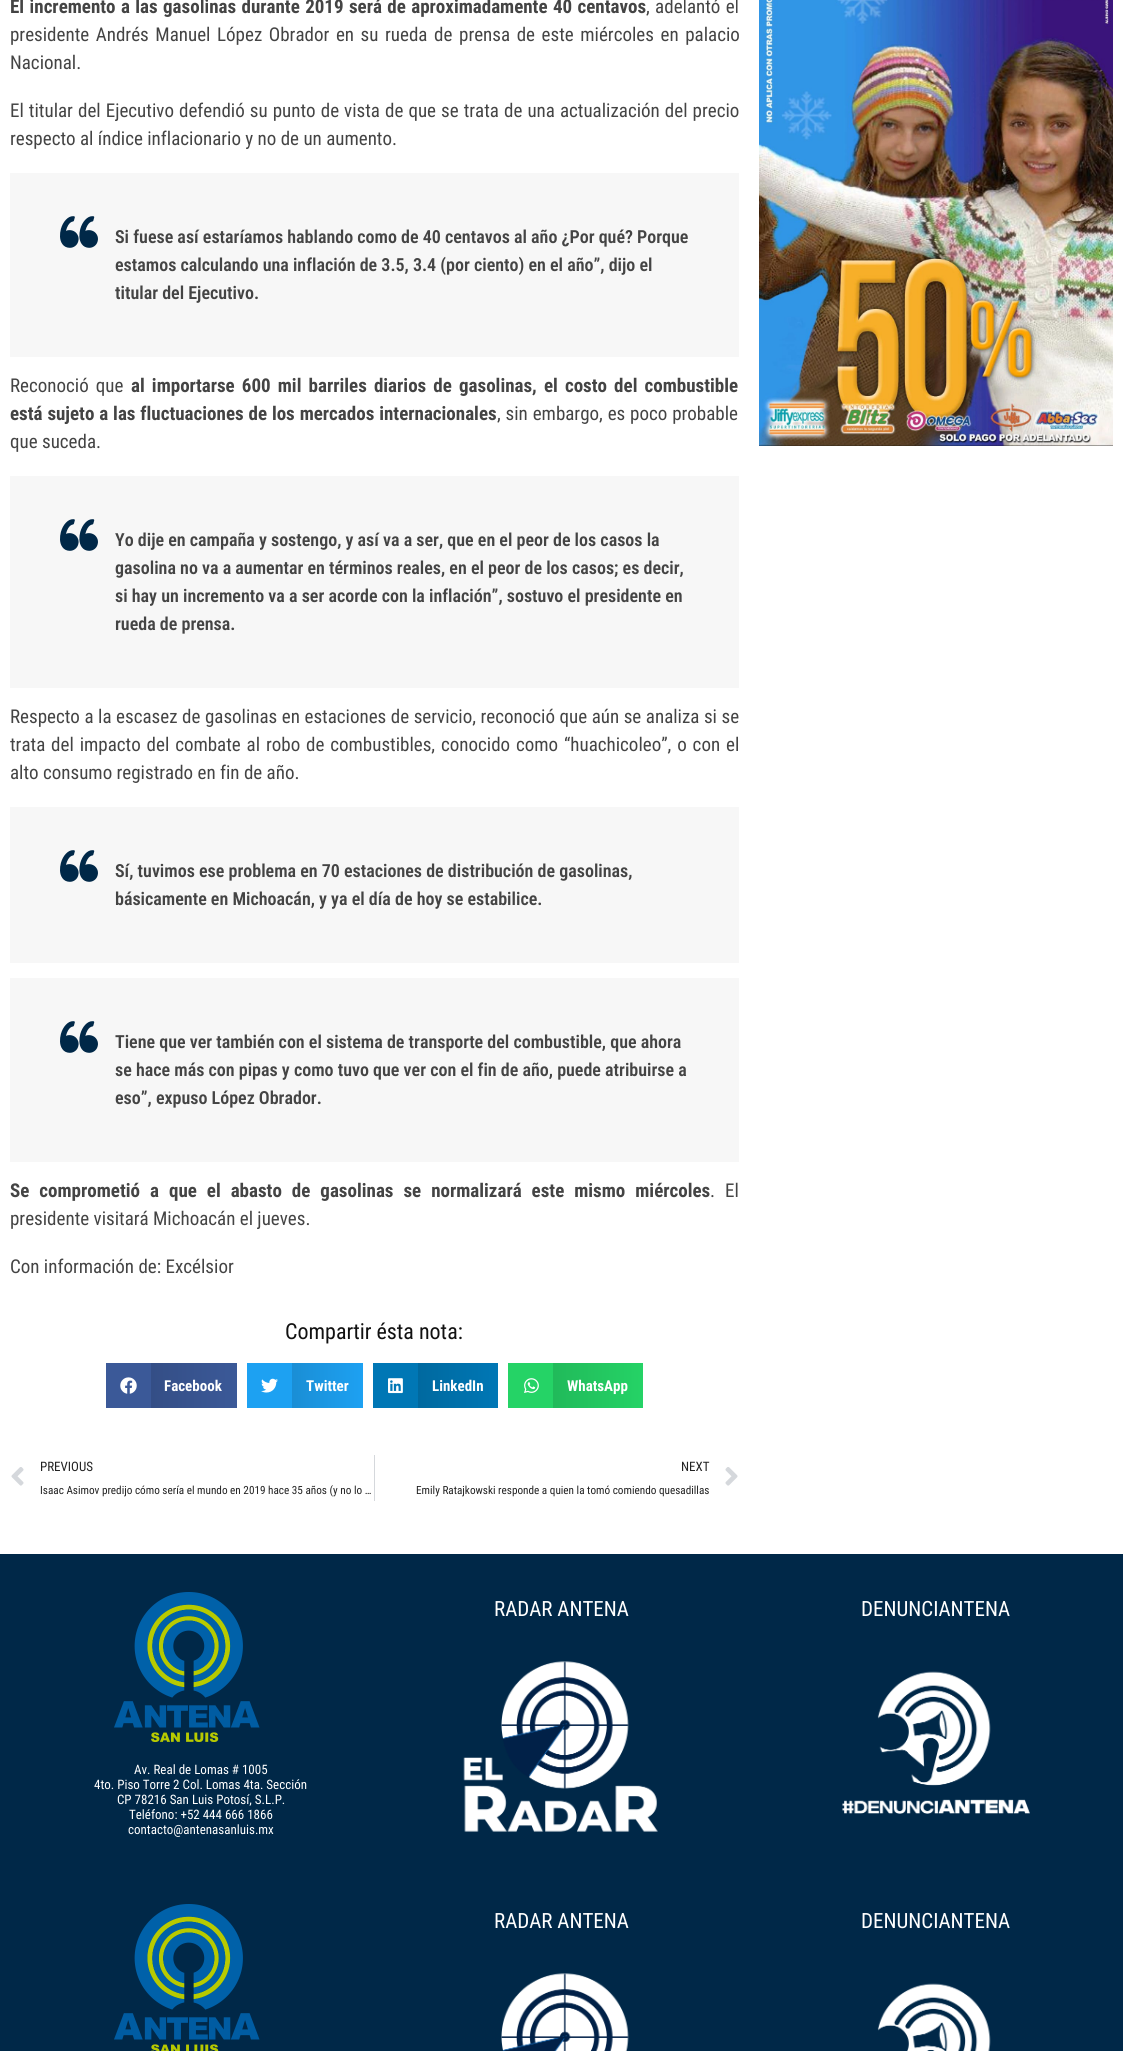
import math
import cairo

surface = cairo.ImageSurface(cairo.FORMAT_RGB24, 1123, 2051)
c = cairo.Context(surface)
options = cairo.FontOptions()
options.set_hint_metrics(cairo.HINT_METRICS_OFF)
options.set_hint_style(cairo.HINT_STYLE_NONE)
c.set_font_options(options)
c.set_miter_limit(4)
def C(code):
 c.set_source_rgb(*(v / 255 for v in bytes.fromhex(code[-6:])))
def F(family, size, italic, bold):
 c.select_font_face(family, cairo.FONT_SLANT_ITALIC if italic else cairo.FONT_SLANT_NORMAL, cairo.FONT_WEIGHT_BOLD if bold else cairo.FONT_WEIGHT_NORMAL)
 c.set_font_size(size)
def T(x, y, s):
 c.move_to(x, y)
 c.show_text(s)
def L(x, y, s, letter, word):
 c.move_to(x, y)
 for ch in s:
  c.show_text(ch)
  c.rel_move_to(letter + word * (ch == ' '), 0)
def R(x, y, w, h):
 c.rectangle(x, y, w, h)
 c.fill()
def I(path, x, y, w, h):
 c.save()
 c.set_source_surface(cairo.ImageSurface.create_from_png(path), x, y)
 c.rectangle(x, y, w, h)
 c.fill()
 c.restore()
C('ffffff')
c.paint()
F('Roboto Condensed',19,0,1)
C('444444')
L(10,13,'El incremento a las gasolinas durante 2019 será de aproximadamente 40 centavos',0,1)
F('Roboto Condensed',19,0,0)
L(646,13,', adelantó el',0,1)
L(10,41,'presidente Andrés Manuel López Obrador en su rueda de prensa de este miércoles en palacio',0,2.25)
T(10,69,'Nacional.')
L(10,117,'El titular del Ejecutivo defendió su punto de vista de que se trata de una actualización del precio',0,.7)
T(10,145,'respecto al índice inflacionario y no de un aumento.')
C('f7f7f7')
R(10,173,729,184)
I('1.png',60,216,38,32)
F('Roboto Condensed SemiBold',18,0,0)
C('444444')
T(115,243,'Si fuese así estaríamos hablando como de 40 centavos al año ¿Por qué? Porque')
T(115,271,'estamos calculando una inflación de 3.5, 3.4 (por ciento) en el año”, dijo el')
T(115,299,'titular del Ejecutivo.')
F('Roboto Condensed',19,0,0)
L(10,392,'Reconoció que',0,2.75)
F('Roboto Condensed',19,0,1)
L(131,392,'al importarse 600 mil barriles diarios de gasolinas, el costo del combustible',0,2.75)
L(10,420,'está sujeto a las fluctuaciones de los mercados internacionales',0,.5)
F('Roboto Condensed',19,0,0)
L(497,420,', sin embargo, es poco probable',0,.5)
T(10,448,'que suceda.')
C('f7f7f7')
R(10,476,729,212)
I('1.png',60,519,38,32)
F('Roboto Condensed SemiBold',18,0,0)
C('444444')
T(115,546,'Yo dije en campaña y sostengo, y así va a ser, que en el peor de los casos la')
T(115,574,'gasolina no va a aumentar en términos reales, en el peor de los casos; es decir,')
T(115,602,'si hay un incremento va a ser acorde con la inflación”, sostuvo el presidente en')
T(115,630,'rueda de prensa.')
F('Roboto Condensed',19,0,0)
L(10,723,'Respecto a la escasez de gasolinas en estaciones de servicio, reconoció que aún se analiza si se',0,.2)
L(10,751,'trata del impacto del combate al robo de combustibles, conocido como “huachicoleo”, o con el',0,1.5)
T(10,779,'alto consumo registrado en fin de año.')
C('f7f7f7')
R(10,807,729,156)
I('1.png',60,850,38,32)
F('Roboto Condensed SemiBold',18,0,0)
C('444444')
T(115,877,'Sí, tuvimos ese problema en 70 estaciones de distribución de gasolinas,')
T(115,905,'básicamente en Michoacán, y ya el día de hoy se estabilice.')
C('f7f7f7')
R(10,978,729,184)
I('1.png',60,1021,38,32)
C('444444')
T(115,1048,'Tiene que ver también con el sistema de transporte del combustible, que ahora')
T(115,1076,'se hace más con pipas y como tuvo que ver con el fin de año, puede atribuirse a')
T(115,1104,'eso”, expuso López Obrador.')
F('Roboto Condensed',19,0,1)
L(10,1197,'Se comprometió a que el abasto de gasolinas se normalizará este mismo miércoles',0,5.6)
F('Roboto Condensed',19,0,0)
L(710,1197,'. El',0,5.6)
T(10,1225,'presidente visitará Michoacán el jueves.')
T(10,1273,'Con información de: Excélsior')
F('Roboto Condensed',22,0,0)
C('111111')
T(285,1339,'Compartir ésta nota:')
C('3b5998')
R(106,1363,45,45)
I('2.png',120,1377,17,17)
gradient = cairo.LinearGradient(151,1386,237,1386)
gradient.add_color_stop_rgba(0,0.204,0.306,0.525,1)
gradient.add_color_stop_rgba(1,0.231,0.349,0.596,1)
c.set_source(gradient)
R(151,1363,86,45)
F('Roboto Condensed',15,0,1)
C('ffffff')
T(164,1391,'Facebook')
C('1da1f2')
R(247,1363,45,45)
I('3.png',261,1378,17,15)
gradient = cairo.LinearGradient(292,1386,363,1386)
gradient.add_color_stop_rgba(0,0.102,0.557,0.835,1)
gradient.add_color_stop_rgba(1,0.114,0.631,0.949,1)
c.set_source(gradient)
R(292,1363,71,45)
C('ffffff')
T(306,1391,'Twitter')
C('0077b5')
R(373,1363,45,45)
I('4.png',388,1378,15,16)
gradient = cairo.LinearGradient(418,1386,498,1386)
gradient.add_color_stop_rgba(0,0,0.412,0.624,1)
gradient.add_color_stop_rgba(1,0,0.467,0.71,1)
c.set_source(gradient)
R(418,1363,80,45)
C('ffffff')
T(432,1391,'LinkedIn')
C('25d366')
R(508,1363,45,45)
I('5.png',524,1378,15,15)
gradient = cairo.LinearGradient(553,1386,643,1386)
gradient.add_color_stop_rgba(0,0.129,0.729,0.353,1)
gradient.add_color_stop_rgba(1,0.145,0.827,0.4,1)
c.set_source(gradient)
R(553,1363,90,45)
C('ffffff')
T(567,1391,'WhatsApp')
I('6.png',11,1467,13,19)
F('Roboto Condensed',13,0,0)
C('222222')
T(40,1471,'PREVIOUS')
F('Roboto Condensed',11.2,0,0)
T(40,1494,'Isaac Asimov predijo cómo sería el mundo en 2019 hace 35 años (y no lo …')
C('d5d8dc')
R(374,1455,1,46)
F('Roboto Condensed',13,0,0)
C('222222')
T(681,1471,'NEXT')
F('Roboto Condensed',11.2,0,0)
T(416,1494,'Emily Ratajkowski responde a quien la tomó comiendo quesadillas')
I('7.png',725,1467,13,19)
I('8.png',759,0,354,446)
C('002848')
R(0,1554,1123,497)
F('Roboto Condensed',21,0,0)
C('ffffff')
T(494,1616,'RADAR ANTENA')
I('9.png',463,1661,195,171)
T(861,1616,'DENUNCIANTENA')
I('10.png',842,1671,188,143)
I('11.png',114,1592,146,150)
F('Roboto Condensed',13,0,0)
T(134,1774,'Av. Real de Lomas # 1005')
T(94,1789,'4to. Piso Torre 2 Col. Lomas 4ta. Sección')
T(117,1804,'CP 78216 San Luis Potosí, S.L.P.')
T(129,1819,'Teléfono: +52 444 666 1866')
T(128,1834,'contacto@antenasanluis.mx')
I('12.png',114,1904,146,147)
F('Roboto Condensed',21,0,0)
T(494,1928,'RADAR ANTENA')
I('13.png',501,1973,128,78)
T(861,1928,'DENUNCIANTENA')
I('14.png',877,1983,114,68)
surface.write_to_png('o.png')
